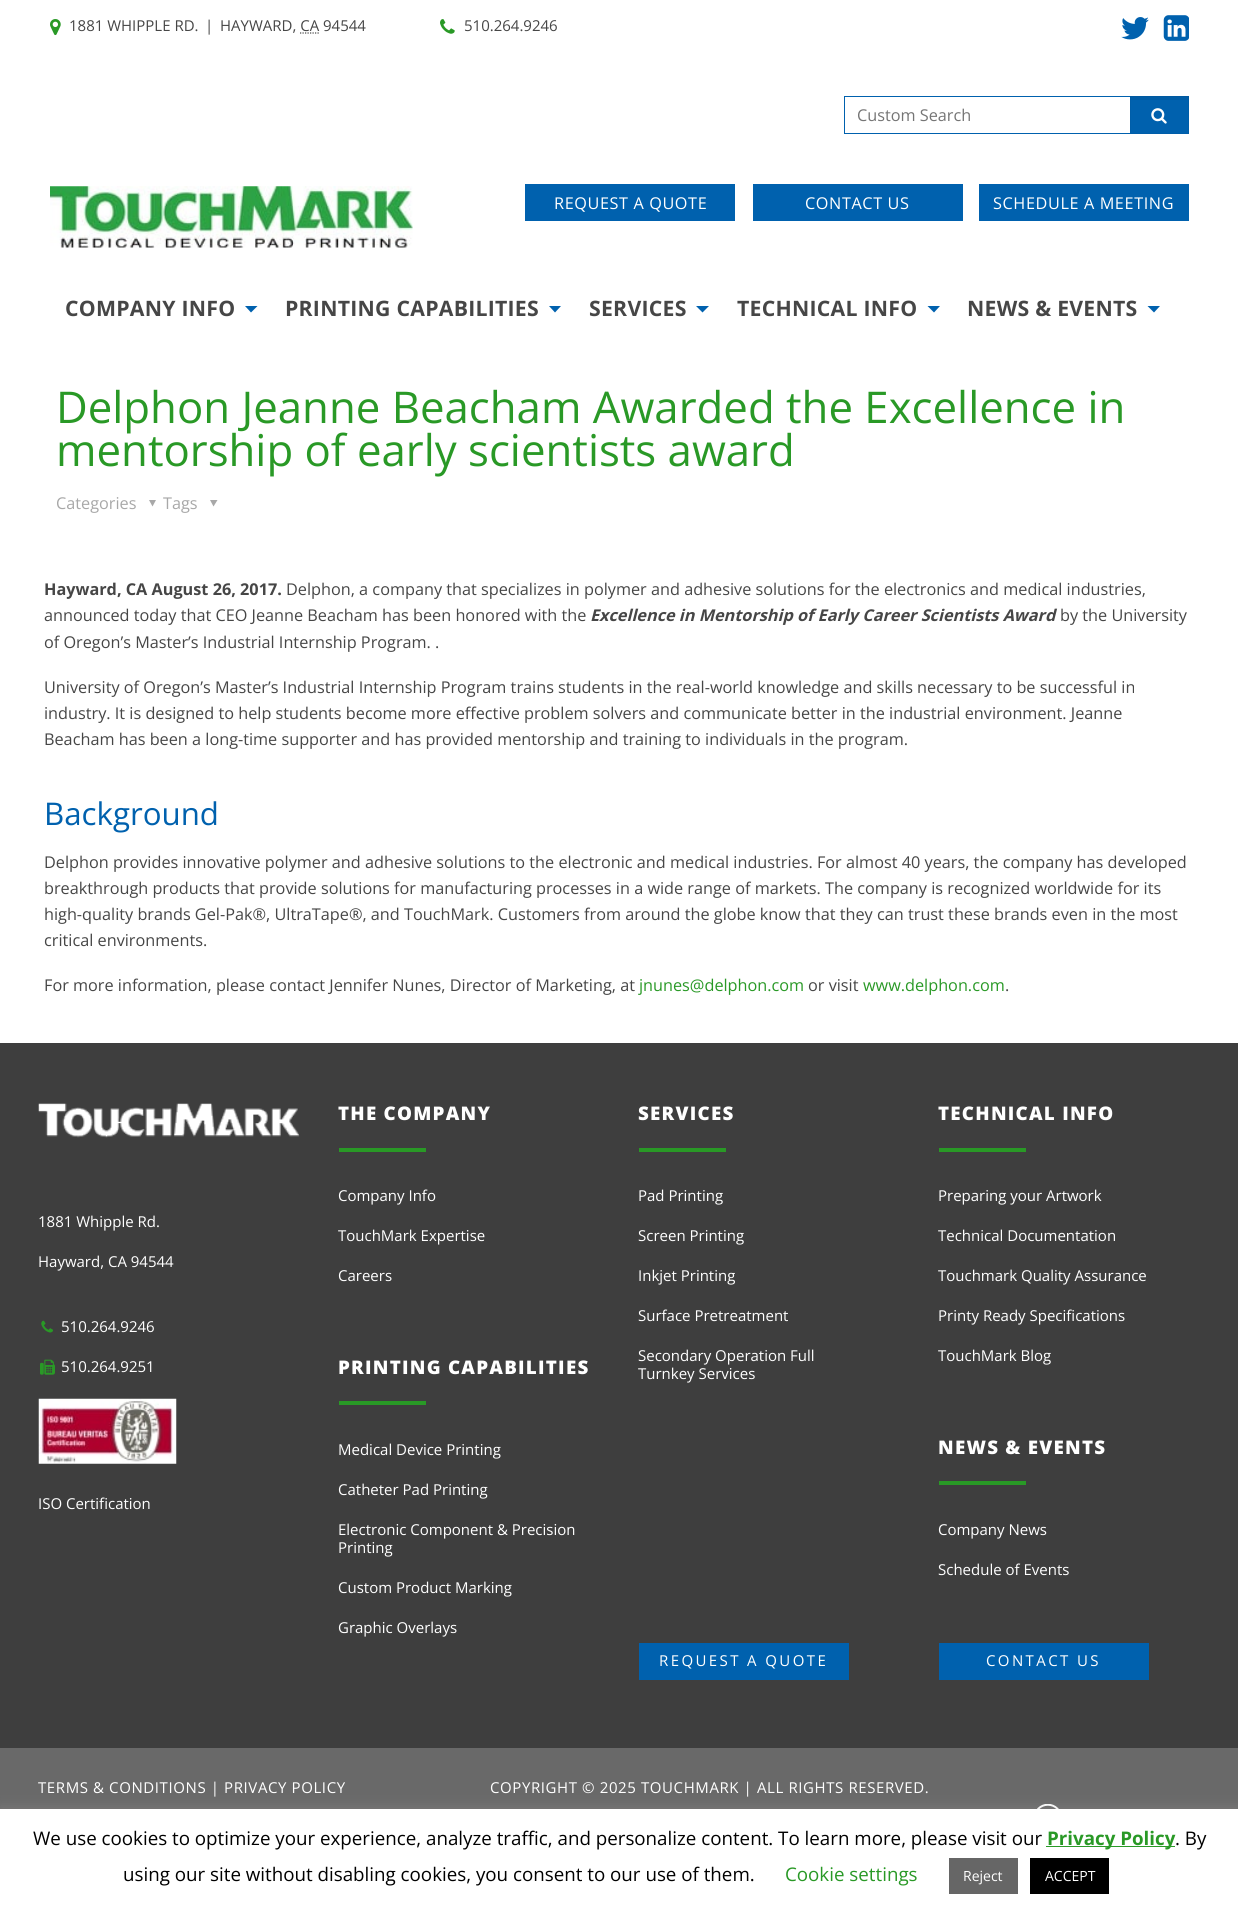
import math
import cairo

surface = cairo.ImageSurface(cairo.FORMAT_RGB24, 1238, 1914)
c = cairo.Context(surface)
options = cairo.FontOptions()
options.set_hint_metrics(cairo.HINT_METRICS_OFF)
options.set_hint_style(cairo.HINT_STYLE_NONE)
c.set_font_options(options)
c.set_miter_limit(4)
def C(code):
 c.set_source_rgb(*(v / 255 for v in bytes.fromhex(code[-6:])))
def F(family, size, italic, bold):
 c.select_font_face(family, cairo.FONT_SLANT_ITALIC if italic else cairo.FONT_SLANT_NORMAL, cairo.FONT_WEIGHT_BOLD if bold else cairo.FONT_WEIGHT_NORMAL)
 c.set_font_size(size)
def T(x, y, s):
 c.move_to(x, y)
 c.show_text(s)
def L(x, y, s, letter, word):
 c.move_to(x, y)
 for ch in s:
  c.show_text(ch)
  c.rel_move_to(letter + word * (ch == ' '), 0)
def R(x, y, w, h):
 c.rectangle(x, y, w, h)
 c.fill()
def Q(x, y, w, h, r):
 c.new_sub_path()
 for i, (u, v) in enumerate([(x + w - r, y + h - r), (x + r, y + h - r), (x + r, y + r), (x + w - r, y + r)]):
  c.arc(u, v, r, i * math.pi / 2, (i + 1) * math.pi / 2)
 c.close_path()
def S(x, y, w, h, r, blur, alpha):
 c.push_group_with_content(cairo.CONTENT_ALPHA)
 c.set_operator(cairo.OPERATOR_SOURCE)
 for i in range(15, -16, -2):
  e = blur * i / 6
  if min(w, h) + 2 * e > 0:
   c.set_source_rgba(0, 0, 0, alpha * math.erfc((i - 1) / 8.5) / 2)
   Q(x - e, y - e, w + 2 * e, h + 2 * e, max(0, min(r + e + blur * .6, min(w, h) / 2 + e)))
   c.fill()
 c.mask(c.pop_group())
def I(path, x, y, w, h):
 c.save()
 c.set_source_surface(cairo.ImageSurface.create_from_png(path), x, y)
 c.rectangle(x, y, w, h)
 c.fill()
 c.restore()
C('ffffff')
c.paint()
I('1.png',50,19,11,17)
F('Open Sans',15,0,0)
C('464646')
T(69,31,'1881 WHIPPLE RD.')
T(205,31,'|')
T(220,31,'HAYWARD, CA 94544')
c.new_path()
c.move_to(300,33)
c.line_to(319,33)
c.set_line_width(1.2)
c.set_dash([1.25,1.25])
c.stroke()
I('2.png',440,19,15,15)
T(464,31,'510.264.9246')
I('3.png',1121,17,28,23)
I('4.png',1163,15,26,26)
c.rectangle(844.5,96.5,286,37)
C('0061ae')
c.set_line_width(1)
c.set_dash([])
c.stroke()
F('Open Sans',16.25,0,0)
C('757575')
T(857,121,'Custom Search')
C('0061ae')
R(1131,100,58,34)
C('005ca5')
R(1130,96,59,4)
c.rectangle(1130.5,96.5,58,37)
c.set_source_rgba(0,0,0,0.03)
c.stroke()
I('5.png',1151,108,16,16)
I('6.png',50,186,363,62)
C('0061ae')
R(525,184,210,37)
C('ffffff')
L(554,209,'REQUEST A QUOTE',.6,0)
C('0061ae')
R(753,184,210,37)
C('ffffff')
L(805,209,'CONTACT US',.6,0)
C('0061ae')
R(979,184,210,37)
C('ffffff')
L(993,209,'SCHEDULE A MEETING',.6,0)
F('Open Sans',21.25,0,1)
C('464646')
L(65,316,'COMPANY INFO',.25,0)
C('0061ae')
c.new_path()
c.move_to(245,306)
c.line_to(257.5,306)
c.line_to(251,312.5)
c.close_path()
c.fill()
C('464646')
L(285,316,'PRINTING CAPABILITIES',.25,0)
C('0061ae')
c.new_path()
c.move_to(549,306)
c.line_to(561,306)
c.line_to(555,312.5)
c.close_path()
c.fill()
C('464646')
L(589,316,'SERVICES',.25,0)
C('0061ae')
c.new_path()
c.move_to(696,306)
c.line_to(709,306)
c.line_to(702.5,312.5)
c.close_path()
c.fill()
C('464646')
L(737,316,'TECHNICAL INFO',.25,0)
C('0061ae')
c.new_path()
c.move_to(927.5,306)
c.line_to(940,306)
c.line_to(934,312.5)
c.close_path()
c.fill()
C('464646')
L(967,316,'NEWS & EVENTS',.25,0)
C('0061ae')
c.new_path()
c.move_to(1147.5,306)
c.line_to(1160,306)
c.line_to(1154,312.5)
c.close_path()
c.fill()
F('Open Sans',43.75,0,0)
C('299926')
T(56,423,'Delphon Jeanne Beacham Awarded the Excellence in')
T(56,466,'mentorship of early scientists award')
F('Open Sans',16.25,0,0)
C('a8a8a8')
T(56,509,'Categories')
c.new_path()
c.move_to(156,500)
c.line_to(152.5,506.5)
c.line_to(149,500)
c.close_path()
c.fill()
T(163,509,'Tags')
c.new_path()
c.move_to(217.5,500)
c.line_to(213.5,506.5)
c.line_to(210,500)
c.close_path()
c.fill()
F('Open Sans',16.25,0,1)
C('464646')
T(44,595,'Hayward, CA August 26, 2017.')
F('Open Sans',16.25,0,0)
T(286,595,'Delphon, a company that specializes in polymer and adhesive solutions for the electronics and medical industries,')
T(44,621,'announced today that CEO Jeanne Beacham has been honored with the')
F('Open Sans',16.25,1,1)
T(590,621,'Excellence in Mentorship of Early Career Scientists Award')
F('Open Sans',16.25,0,0)
T(1060,621,'by the University')
T(44,648,'of Oregon’s Master’s Industrial Internship Program. .')
T(44,693,'University of Oregon’s Master’s Industrial Internship Program trains students in the real-world knowledge and skills necessary to be successful in')
T(44,719,'industry. It is designed to help students become more effective problem solvers and communicate better in the industrial environment. Jeanne')
T(44,745,'Beacham has been a long-time supporter and has provided mentorship and training to individuals in the program.')
F('Open Sans',31.25,0,0)
C('0061ae')
T(44,825,'Background')
F('Open Sans',16.25,0,0)
C('464646')
T(44,868,'Delphon provides innovative polymer and adhesive solutions to the electronic and medical industries. For almost 40 years, the company has developed')
T(44,894,'breakthrough products that provide solutions for manufacturing processes in a wide range of markets. The company is recognized worldwide for its')
T(44,920,'high-quality brands Gel-Pak®, UltraTape®, and TouchMark. Customers from around the globe know that they can trust these brands even in the most')
T(44,946,'critical environments.')
T(44,991,'For more information, please contact Jennifer Nunes, Director of Marketing, at')
C('299926')
T(639,991,'jnunes@delphon.com')
C('464646')
T(808,991,'or visit')
C('299926')
T(863,991,'www.delphon.com')
C('464646')
T(1005,991,'.')
C('3e3e3e')
R(0,1043,1238,705)
I('7.png',38,1103,262,35)
F('Open Sans',15,0,0)
C('ffffff')
T(38,1227,'1881 Whipple Rd.')
T(38,1267,'Hayward, CA 94544')
I('8.png',41,1320,12,13)
T(61,1332,'510.264.9246')
I('9.png',40,1359,15,16)
T(61,1372,'510.264.9251')
I('10.png',38,1398,139,66)
T(38,1509,'ISO Certification')
F('Open Sans ExtraBold',18.75,0,0)
L(338,1120,'THE COMPANY',1.25,0)
C('299926')
R(339,1148,87,4)
F('Open Sans',15,0,0)
C('ffffff')
T(338,1201,'Company Info')
T(338,1241,'TouchMark Expertise')
T(338,1281,'Careers')
F('Open Sans ExtraBold',18.75,0,0)
L(338,1374,'PRINTING CAPABILITIES',1.25,0)
C('299926')
R(339,1401,87,4)
F('Open Sans',15,0,0)
C('ffffff')
T(338,1455,'Medical Device Printing')
T(338,1495,'Catheter Pad Printing')
T(338,1535,'Electronic Component & Precision')
T(338,1553,'Printing')
T(338,1593,'Custom Product Marking')
T(338,1633,'Graphic Overlays')
F('Open Sans ExtraBold',18.75,0,0)
L(638,1120,'SERVICES',1.25,0)
C('299926')
R(639,1148,87,4)
F('Open Sans',15,0,0)
C('ffffff')
T(638,1201,'Pad Printing')
T(638,1241,'Screen Printing')
T(638,1281,'Inkjet Printing')
T(638,1321,'Surface Pretreatment')
T(638,1361,'Secondary Operation Full')
T(638,1379,'Turnkey Services')
C('0061ae')
R(639,1643,210,37)
C('ffffff')
L(659,1666,'REQUEST A QUOTE',2.4,0)
F('Open Sans ExtraBold',18.75,0,0)
L(938,1120,'TECHNICAL INFO',1.25,0)
C('299926')
R(939,1148,87,4)
F('Open Sans',15,0,0)
C('ffffff')
T(938,1201,'Preparing your Artwork')
T(938,1241,'Technical Documentation')
T(938,1281,'Touchmark Quality Assurance')
T(938,1321,'Printy Ready Specifications')
T(938,1361,'TouchMark Blog')
F('Open Sans ExtraBold',18.75,0,0)
L(938,1454,'NEWS & EVENTS',1.25,0)
C('299926')
R(939,1481,87,4)
F('Open Sans',15,0,0)
C('ffffff')
T(938,1535,'Company News')
T(938,1575,'Schedule of Events')
C('0061ae')
R(939,1643,210,37)
C('ffffff')
L(986,1666,'CONTACT US',2.4,0)
C('696969')
R(0,1748,1238,61)
C('ffffff')
L(38,1793,'TERMS & CONDITIONS | PRIVACY POLICY',.6,0)
L(490,1793,'COPYRIGHT © 2025 TOUCHMARK | ALL RIGHTS RESERVED.',.6,0)
I('11.png',1037,1804,22,5)
C('acabab')
S(0,1808,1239,106,0,6,.3)
C('ffffff')
R(0,1809,1238,105)
F('Open Sans',18.75,0,0)
C('000000')
T(33,1845,'We use cookies to optimize your experience, analyze traffic, and personalize content. To learn more, please visit our')
C('299926')
R(1046,1846,129,1)
F('Open Sans',18.75,0,1)
T(1047,1845,'Privacy Policy')
F('Open Sans',18.75,0,0)
C('000000')
T(1175,1845,'. By')
T(123,1881,'using our site without disabling cookies, you consent to our use of them.')
C('299926')
T(785,1881,'Cookie settings')
C('666666')
R(949,1858,69,36)
F('Open Sans',14,0,0)
C('ffffff')
T(963,1881,'Reject')
C('000000')
R(1030,1858,79,36)
C('ffffff')
T(1045,1881,'ACCEPT')
surface.write_to_png('o.png')
